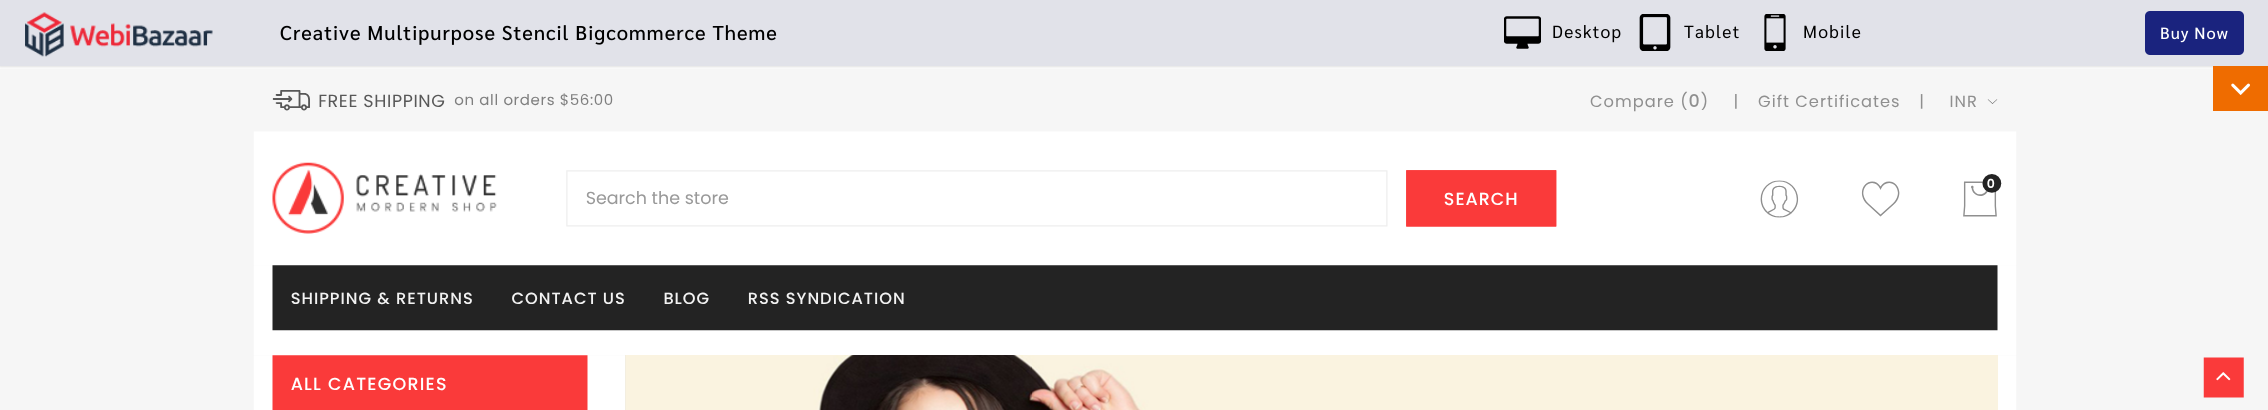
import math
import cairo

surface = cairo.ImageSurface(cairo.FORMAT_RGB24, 2268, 410)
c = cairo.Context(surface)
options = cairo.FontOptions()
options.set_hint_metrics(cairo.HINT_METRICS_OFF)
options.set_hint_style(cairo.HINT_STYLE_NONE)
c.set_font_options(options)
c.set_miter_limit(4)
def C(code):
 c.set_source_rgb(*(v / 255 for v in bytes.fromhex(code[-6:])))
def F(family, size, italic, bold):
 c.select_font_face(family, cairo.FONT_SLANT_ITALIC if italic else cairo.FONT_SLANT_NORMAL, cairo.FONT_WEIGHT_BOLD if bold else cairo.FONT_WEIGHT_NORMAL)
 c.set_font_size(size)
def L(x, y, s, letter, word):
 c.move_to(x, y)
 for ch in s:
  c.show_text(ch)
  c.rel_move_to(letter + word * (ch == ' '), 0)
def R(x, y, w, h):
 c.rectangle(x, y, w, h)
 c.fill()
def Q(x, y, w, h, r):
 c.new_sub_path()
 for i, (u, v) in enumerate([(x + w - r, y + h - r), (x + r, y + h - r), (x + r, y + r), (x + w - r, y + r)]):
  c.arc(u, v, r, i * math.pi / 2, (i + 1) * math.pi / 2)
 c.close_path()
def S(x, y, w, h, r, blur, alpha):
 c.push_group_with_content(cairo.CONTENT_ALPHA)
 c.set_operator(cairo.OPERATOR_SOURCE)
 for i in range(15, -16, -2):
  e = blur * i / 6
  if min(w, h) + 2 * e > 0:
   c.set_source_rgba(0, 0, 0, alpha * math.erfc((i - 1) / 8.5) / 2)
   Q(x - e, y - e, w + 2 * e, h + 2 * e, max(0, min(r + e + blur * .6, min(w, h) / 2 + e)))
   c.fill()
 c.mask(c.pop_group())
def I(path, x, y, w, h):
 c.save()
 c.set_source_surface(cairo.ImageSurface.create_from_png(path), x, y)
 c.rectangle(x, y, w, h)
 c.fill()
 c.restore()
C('ffffff')
c.paint()
C('cccccc')
S(0,0,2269,66,0,2,1)
C('e1e2e9')
R(0,0,2268,66)
I('1.png',25,12,188,45)
F('Sarabun Medium',20,0,0)
C('000000')
L(280,40,'Creative Multipurpose Stencil Bigcommerce Theme',1,0)
I('2.png',1504,16,37,33)
F('Sarabun',17.5,0,0)
L(1552,38,'Desktop',1.25,0)
I('3.png',1639,14,32,37)
L(1684,38,'Tablet',1.25,0)
I('4.png',1764,14,22,37)
L(1803,38,'Mobile',1.25,0)
C('1a237e')
Q(2145,11,99,44,5)
c.fill()
F('Sarabun Medium',16.25,0,0)
C('ffffff')
L(2160,39,'Buy Now',1,0)
I('6.png',0,69,2268,341)
C('ef6c00')
R(2213,66,55,45)
I('5.png',2231,83,19,12)
surface.write_to_png('o.png')
